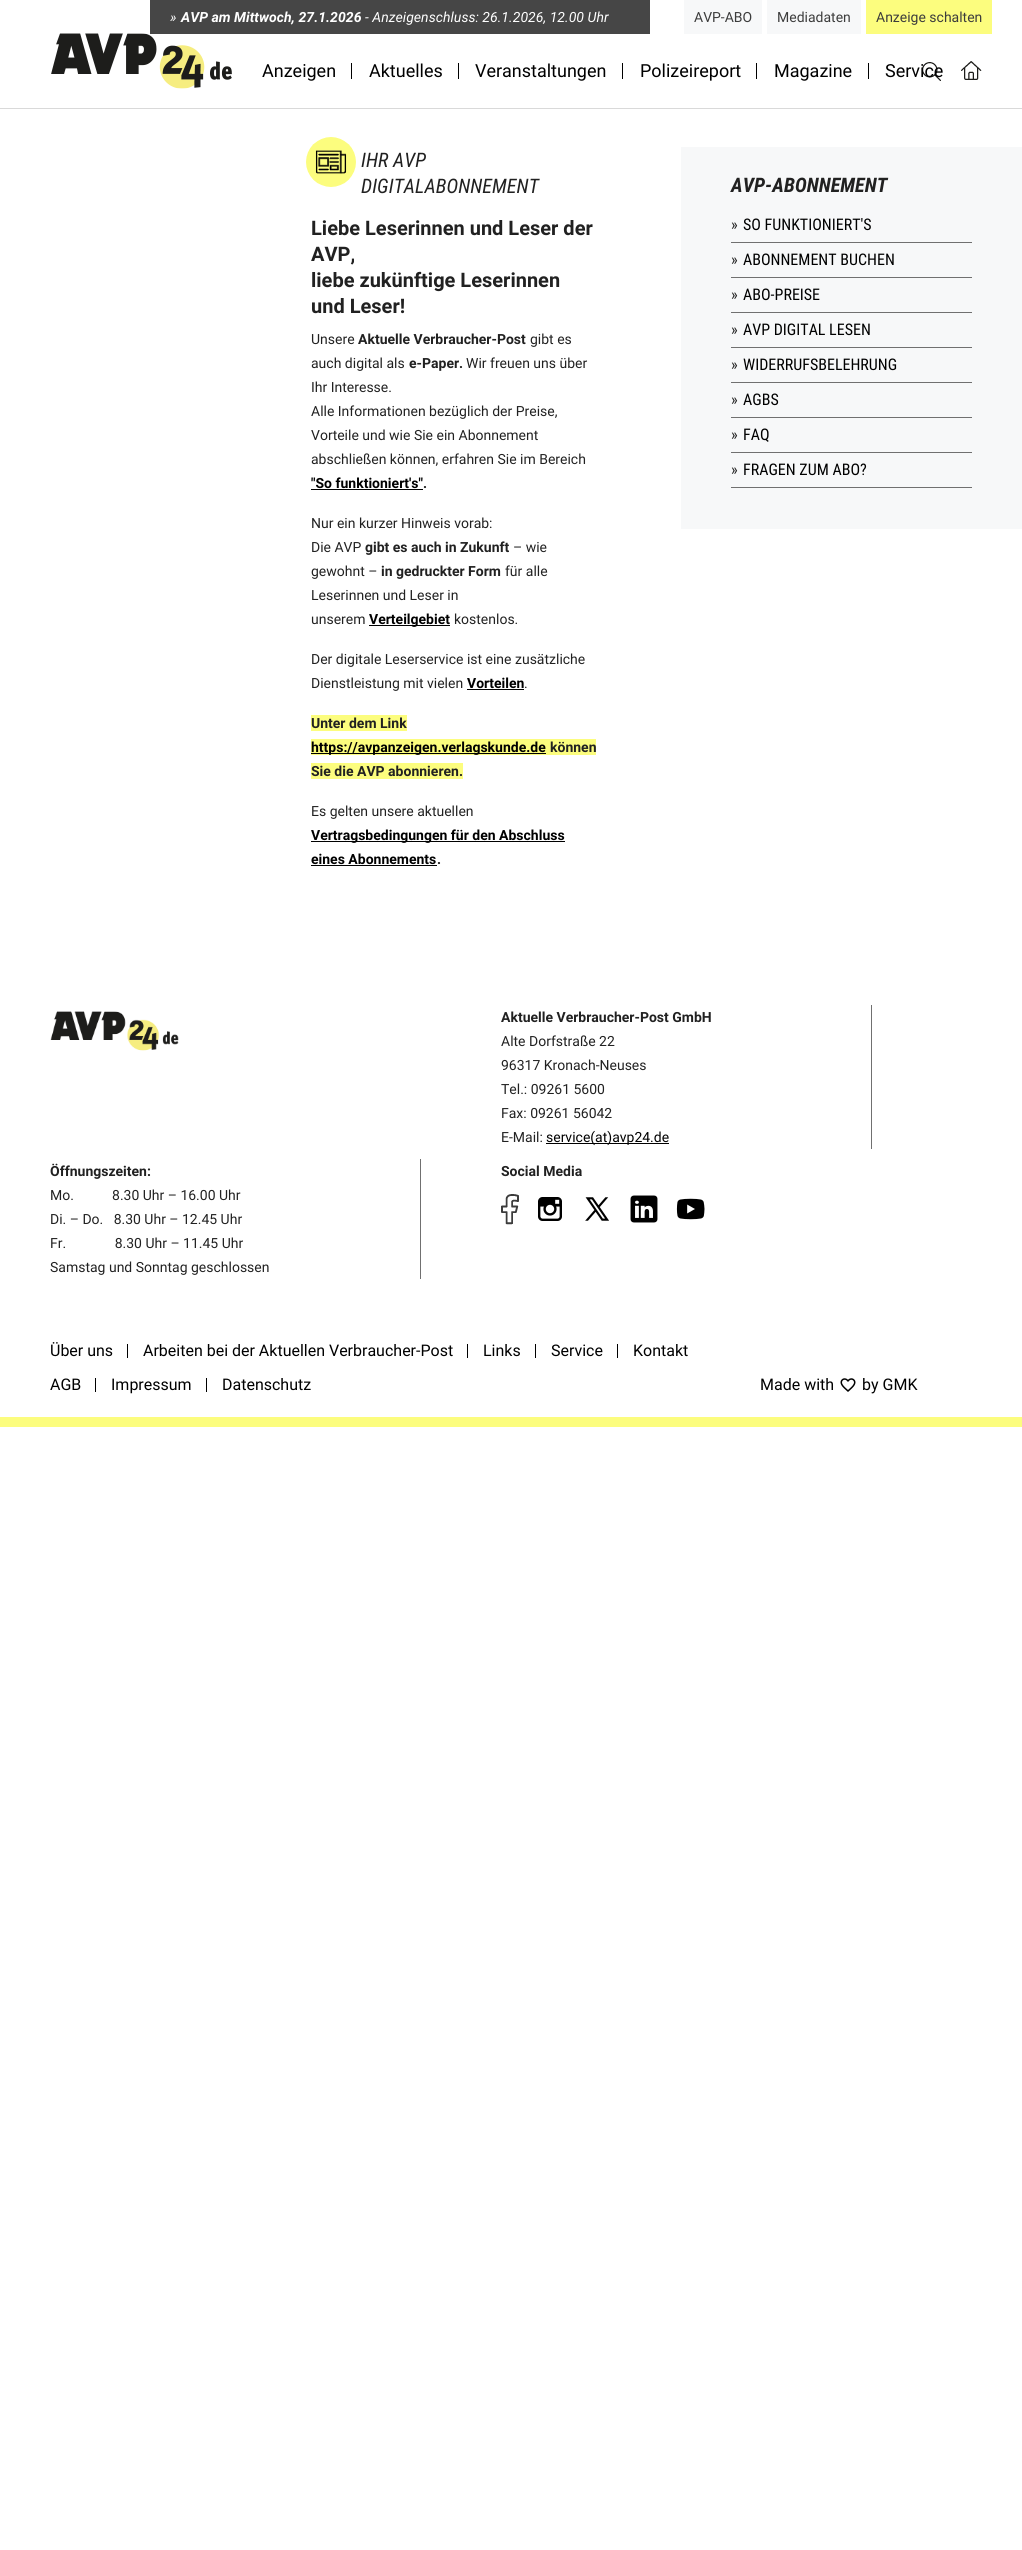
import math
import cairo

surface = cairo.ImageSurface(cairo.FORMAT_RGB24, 1022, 2550)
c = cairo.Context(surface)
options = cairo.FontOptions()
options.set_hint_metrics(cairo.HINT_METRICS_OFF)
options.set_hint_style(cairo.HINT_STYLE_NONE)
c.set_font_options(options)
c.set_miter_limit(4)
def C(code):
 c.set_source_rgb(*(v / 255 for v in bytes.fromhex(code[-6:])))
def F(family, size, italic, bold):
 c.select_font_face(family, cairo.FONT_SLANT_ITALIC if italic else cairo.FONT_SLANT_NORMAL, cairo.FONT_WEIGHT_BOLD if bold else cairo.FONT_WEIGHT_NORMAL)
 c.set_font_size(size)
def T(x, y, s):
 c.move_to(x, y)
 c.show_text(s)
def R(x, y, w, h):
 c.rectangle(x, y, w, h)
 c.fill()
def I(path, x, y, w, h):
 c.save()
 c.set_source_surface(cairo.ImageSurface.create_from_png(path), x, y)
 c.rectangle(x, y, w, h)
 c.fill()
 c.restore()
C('ffffff')
c.paint()
C('d9d9d9')
R(0,108,1022,1)
I('1.png',51,33,181,56)
C('464646')
R(150,0,500,34)
F('Roboto',14,1,0)
C('ffffff')
T(170,22,'»')
F('Roboto',14,1,1)
T(181,22,'AVP am Mittwoch, 27.1.2026')
F('Roboto',14,1,0)
T(365,22,'- Anzeigenschluss: 26.1.2026, 12.00 Uhr')
C('f7f8f9')
R(684,0,78,34)
F('Roboto',14,0,0)
C('3c3c3c')
T(694,22,'AVP-ABO')
C('f7f8f9')
R(767,0,94,34)
C('3c3c3c')
T(777,22,'Mediadaten')
C('fcfd7e')
R(866,0,126,34)
C('3c3c3c')
T(876,22,'Anzeige schalten')
F('Roboto',18,0,0)
C('000000')
T(262,77,'Anzeigen')
R(351,63,1,16)
T(369,77,'Aktuelles')
R(458,63,1,16)
T(475,77,'Veranstaltungen')
R(622,63,1,16)
T(640,77,'Polizeireport')
R(756,63,1,16)
T(774,77,'Magazine')
R(868,63,1,16)
I('2.png',922,62,19,19)
T(885,77,'Service')
I('3.png',961,61,21,19)
I('4.png',306,137,50,50)
F('Roboto Condensed',20,1,0)
C('212121')
T(361,167,'IHR AVP')
T(361,193,'DIGITALABONNEMENT')
F('Roboto',20,0,1)
T(311,235,'Liebe Leserinnen und Leser der')
T(311,261,'AVP,')
T(311,287,'liebe zukünftige Leserinnen')
T(311,313,'und Leser!')
F('Roboto',14,0,0)
T(311,344,'Unsere')
F('Roboto',14,0,1)
T(358,344,'Aktuelle Verbraucher-Post')
F('Roboto',14,0,0)
T(530,344,'gibt es')
T(311,368,'auch digital als')
F('Roboto',14,0,1)
T(409,368,'e-Paper.')
F('Roboto',14,0,0)
T(466,368,'Wir freuen uns über')
T(311,392,'Ihr Interesse.')
T(311,416,'Alle Informationen bezüglich der Preise,')
T(311,440,'Vorteile und wie Sie ein Abonnement')
T(311,464,'abschließen können, erfahren Sie im Bereich')
F('Roboto',14,0,1)
C('000000')
T(311,488,'"So funktioniert\'s"')
R(311,489,112,1)
C('212121')
T(423,488,'.')
F('Roboto',14,0,0)
T(311,528,'Nur ein kurzer Hinweis vorab:')
T(311,552,'Die AVP')
F('Roboto',14,0,1)
T(365,552,'gibt es auch in Zukunft')
F('Roboto',14,0,0)
T(513,552,'– wie')
T(311,576,'gewohnt –')
F('Roboto',14,0,1)
T(381,576,'in gedruckter Form')
F('Roboto',14,0,0)
T(505,576,'für alle')
T(311,600,'Leserinnen und Leser in')
T(311,624,'unserem')
C('000000')
R(369,625,81,1)
F('Roboto',14,0,1)
T(369,624,'Verteilgebiet')
F('Roboto',14,0,0)
C('212121')
T(454,624,'kostenlos.')
T(311,664,'Der digitale Leserservice ist eine zusätzliche')
T(311,688,'Dienstleistung mit vielen')
F('Roboto',14,0,1)
C('000000')
T(467,688,'Vorteilen')
R(467,689,57,1)
F('Roboto',14,0,0)
C('212121')
T(524,688,'.')
C('fcfd7e')
R(311,715,96,16)
F('Roboto',14,0,1)
C('212121')
T(311,728,'Unter dem Link')
C('fcfd7e')
R(311,739,285,16)
C('000000')
R(311,753,235,1)
T(311,752,'https://avpanzeigen.verlagskunde.de')
C('212121')
T(550,752,'können')
C('fcfd7e')
R(311,763,152,16)
C('212121')
T(311,776,'Sie die AVP abonnieren.')
F('Roboto',14,0,0)
T(311,816,'Es gelten unsere aktuellen')
C('000000')
R(311,841,254,1)
F('Roboto',14,0,1)
T(311,840,'Vertragsbedingungen für den Abschluss')
T(311,864,'eines Abonnements')
R(311,865,126,1)
C('212121')
T(437,864,'.')
C('f7f8f9')
R(681,147,341,382)
F('Roboto Condensed',20,1,1)
C('212121')
T(731,192,'AVP-ABONNEMENT')
C('707070')
R(731,242,241,1)
F('Roboto Condensed',16,0,0)
C('212121')
T(731,230,'»')
C('000000')
T(743,230,'SO FUNKTIONIERT\'S')
C('707070')
R(731,277,241,1)
C('212121')
T(731,265,'»')
C('000000')
T(743,265,'ABONNEMENT BUCHEN')
C('707070')
R(731,312,241,1)
C('212121')
T(731,300,'»')
C('000000')
T(743,300,'ABO-PREISE')
C('707070')
R(731,347,241,1)
C('212121')
T(731,335,'»')
C('000000')
T(743,335,'AVP DIGITAL LESEN')
C('707070')
R(731,382,241,1)
C('212121')
T(731,370,'»')
C('000000')
T(743,370,'WIDERRUFSBELEHRUNG')
C('707070')
R(731,417,241,1)
C('212121')
T(731,405,'»')
C('000000')
T(743,405,'AGBS')
C('707070')
R(731,452,241,1)
C('212121')
T(731,440,'»')
C('000000')
T(743,440,'FAQ')
C('707070')
R(731,487,241,1)
C('212121')
T(731,475,'»')
C('000000')
T(743,475,'FRAGEN ZUM ABO?')
I('5.png',50,1011,129,40)
F('Roboto',14,0,1)
C('212121')
T(501,1022,'Aktuelle Verbraucher-Post GmbH')
F('Roboto',14,0,0)
T(501,1046,'Alte Dorfstraße 22')
T(501,1070,'96317 Kronach-Neuses')
C('707070')
R(871,1005,1,144)
C('212121')
T(501,1094,'Tel.: 09261 5600')
T(501,1118,'Fax: 09261 56042')
T(501,1142,'E-Mail:')
C('000000')
R(546,1143,123,1)
T(546,1142,'service(at)avp24.de')
F('Roboto',14,0,1)
C('212121')
T(50,1176,'Öffnungszeiten:')
F('Roboto',14,0,0)
T(50,1200,'Mo.           8.30 Uhr – 16.00 Uhr')
T(50,1224,'Di. – Do.   8.30 Uhr – 12.45 Uhr')
T(50,1248,'Fr.              8.30 Uhr – 11.45 Uhr')
T(50,1272,'Samstag und Sonntag geschlossen')
C('707070')
R(420,1159,1,120)
F('Roboto',14,0,1)
C('212121')
T(501,1176,'Social Media')
I('6.png',501,1194,18,31)
I('7.png',538,1197,24,24)
I('8.png',585,1197,24,24)
I('9.png',630,1195,28,28)
I('10.png',676,1198,29,22)
F('Roboto',16,0,0)
C('000000')
T(50,1356,'Über uns')
R(127,1344,1,14)
T(143,1356,'Arbeiten bei der Aktuellen Verbraucher-Post')
R(467,1344,1,14)
T(483,1356,'Links')
R(535,1344,1,14)
T(551,1356,'Service')
R(617,1344,1,14)
T(633,1356,'Kontakt')
T(50,1390,'AGB')
R(95,1378,1,14)
T(111,1390,'Impressum')
R(206,1378,1,14)
T(222,1390,'Datenschutz')
T(760,1390,'Made with')
I('11.png',840,1378,16,14)
T(862,1390,'by GMK')
C('fcfd7e')
R(0,1417,1022,10)
surface.write_to_png('o.png')
